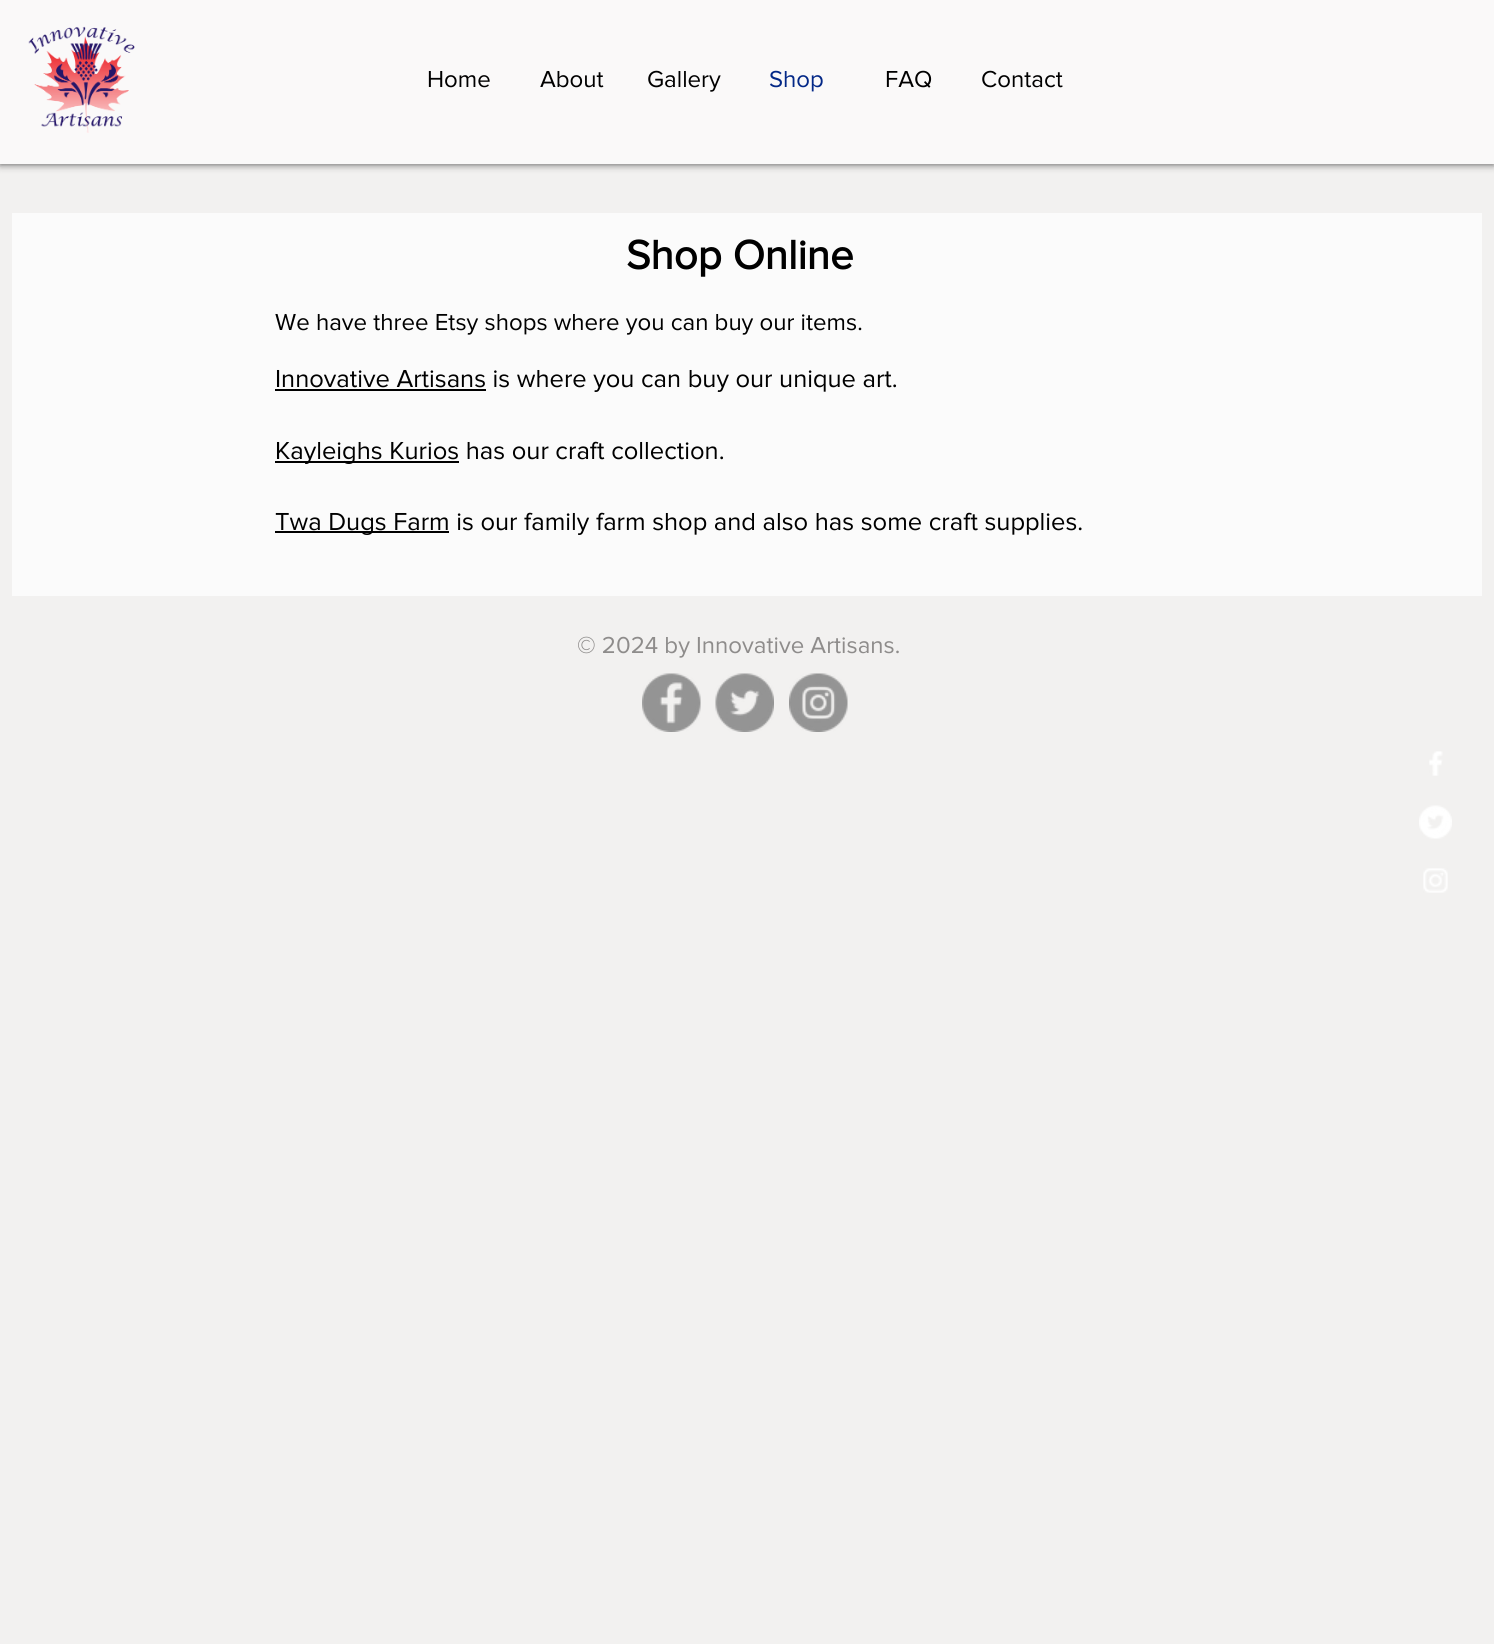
import math
import cairo

surface = cairo.ImageSurface(cairo.FORMAT_RGB24, 1494, 1644)
c = cairo.Context(surface)
options = cairo.FontOptions()
options.set_hint_metrics(cairo.HINT_METRICS_OFF)
options.set_hint_style(cairo.HINT_STYLE_NONE)
c.set_font_options(options)
c.set_miter_limit(4)
def C(code):
 c.set_source_rgb(*(v / 255 for v in bytes.fromhex(code[-6:])))
def F(family, size, italic, bold):
 c.select_font_face(family, cairo.FONT_SLANT_ITALIC if italic else cairo.FONT_SLANT_NORMAL, cairo.FONT_WEIGHT_BOLD if bold else cairo.FONT_WEIGHT_NORMAL)
 c.set_font_size(size)
def T(x, y, s):
 c.move_to(x, y)
 c.show_text(s)
def R(x, y, w, h):
 c.rectangle(x, y, w, h)
 c.fill()
def Q(x, y, w, h, r):
 c.new_sub_path()
 for i, (u, v) in enumerate([(x + w - r, y + h - r), (x + r, y + h - r), (x + r, y + r), (x + w - r, y + r)]):
  c.arc(u, v, r, i * math.pi / 2, (i + 1) * math.pi / 2)
 c.close_path()
def S(x, y, w, h, r, blur, alpha):
 c.push_group_with_content(cairo.CONTENT_ALPHA)
 c.set_operator(cairo.OPERATOR_SOURCE)
 for i in range(15, -16, -2):
  e = blur * i / 6
  if min(w, h) + 2 * e > 0:
   c.set_source_rgba(0, 0, 0, alpha * math.erfc((i - 1) / 8.5) / 2)
   Q(x - e, y - e, w + 2 * e, h + 2 * e, max(0, min(r + e + blur * .6, min(w, h) / 2 + e)))
   c.fill()
 c.mask(c.pop_group())
def I(path, x, y, w, h):
 c.save()
 c.set_source_surface(cairo.ImageSurface.create_from_png(path), x, y)
 c.rectangle(x, y, w, h)
 c.fill()
 c.restore()
C('f2f1f0')
c.paint()
c.save()
c.set_fill_rule(cairo.FILL_RULE_EVEN_ODD)
c.new_path()
c.move_to(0,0)
c.line_to(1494,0)
c.line_to(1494,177)
c.line_to(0,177)
c.close_path()
c.move_to(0,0)
c.line_to(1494,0)
c.line_to(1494,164)
c.line_to(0,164)
c.close_path()
c.clip()
C('000000')
S(0,0,1494,164,0,4,.7)
c.restore()
c.set_source_rgba(1,1,1,0.6)
R(0,0,1494,164)
I('1.png',28,26,107,107)
F('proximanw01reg',24,0,0)
C('000000')
T(427,87,'Home')
T(540,87,'About')
T(647,87,'Gallery')
C('032887')
T(769,87,'Shop')
C('000000')
T(885,87,'FAQ')
T(981,87,'Contact')
C('fbfbfb')
R(12,213,1470,383)
F('proximanw01reg',42,0,1)
C('000000')
T(626,269,'Shop Online')
F('proximanw01reg',24,0,0)
T(275,330,'We have three Etsy shops where you can buy our items.')
R(275,389,211,2)
F('proximanw01reg',25.5,0,0)
T(275,387,'Innovative Artisans is where you can buy our unique art.')
R(275,461,184,2)
T(275,459,'Kayleighs Kurios has our craft collection.')
R(275,531,174,2)
T(275,530,'Twa Dugs Farm is our family farm shop and also has some craft supplies.')
F('proximanw01reg',24,0,0)
C('8e8c8b')
T(577,653,'© 2024 by Innovative Artisans.')
I('2.png',642,673,59,59)
I('3.png',715,673,59,59)
I('4.png',789,673,59,59)
I('5.png',1429,751,14,25)
I('6.png',1419,805,33,34)
I('7.png',1423,868,25,25)
surface.write_to_png('o.png')
